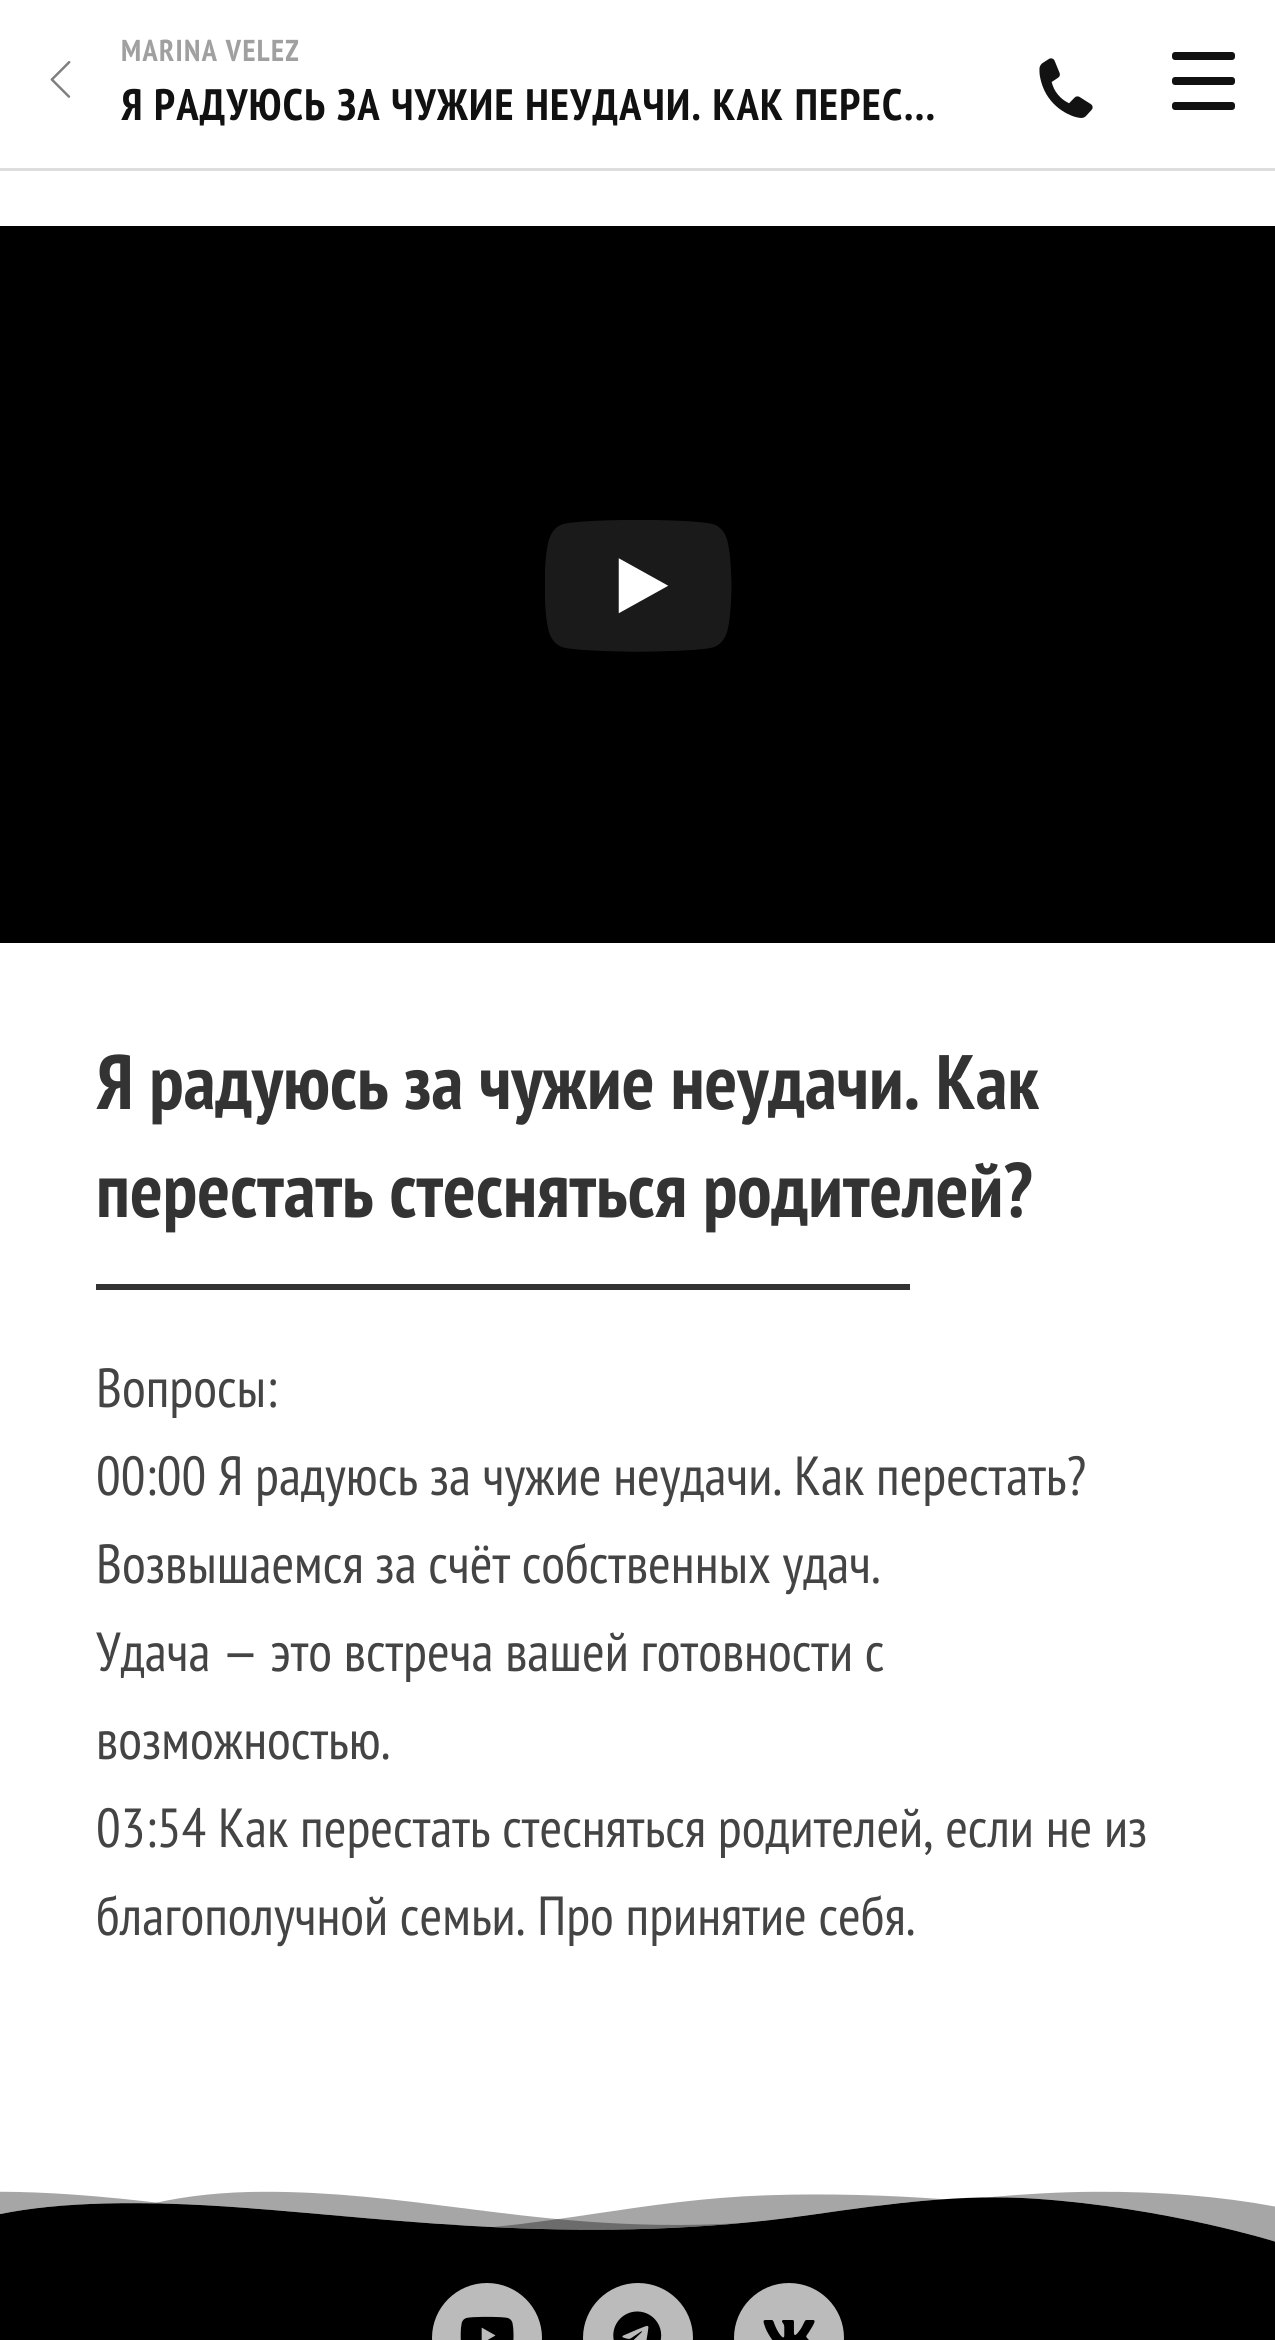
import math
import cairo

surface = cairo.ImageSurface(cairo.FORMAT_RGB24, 1275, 2340)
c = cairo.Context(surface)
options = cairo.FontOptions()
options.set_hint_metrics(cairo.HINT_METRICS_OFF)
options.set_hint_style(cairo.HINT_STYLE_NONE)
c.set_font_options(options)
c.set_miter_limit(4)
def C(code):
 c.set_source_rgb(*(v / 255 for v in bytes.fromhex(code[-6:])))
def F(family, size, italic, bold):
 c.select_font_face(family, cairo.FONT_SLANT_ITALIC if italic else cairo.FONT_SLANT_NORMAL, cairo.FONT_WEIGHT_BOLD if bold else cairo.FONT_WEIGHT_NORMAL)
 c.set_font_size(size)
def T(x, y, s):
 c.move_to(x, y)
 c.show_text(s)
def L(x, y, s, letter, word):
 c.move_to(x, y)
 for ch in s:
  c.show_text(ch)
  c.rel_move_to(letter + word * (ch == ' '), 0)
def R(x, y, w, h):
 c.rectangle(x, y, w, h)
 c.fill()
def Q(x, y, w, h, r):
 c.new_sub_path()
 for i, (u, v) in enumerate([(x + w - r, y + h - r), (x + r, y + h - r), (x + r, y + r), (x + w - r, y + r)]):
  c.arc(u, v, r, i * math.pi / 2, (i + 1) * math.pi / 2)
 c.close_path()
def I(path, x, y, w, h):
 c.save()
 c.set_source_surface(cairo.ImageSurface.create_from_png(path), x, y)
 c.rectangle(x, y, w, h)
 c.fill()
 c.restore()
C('ffffff')
c.paint()
C('dddddd')
R(0,168,1275,3)
I('1.png',50,61,21,37)
F('PT Sans Narrow',30.25,0,1)
C('a0a0a0')
L(121,61,'MARINA VELEZ',1.35,0)
F('PT Sans Narrow',44,0,1)
C('111111')
L(121,120,'Я РАДУЮСЬ ЗА ЧУЖИЕ НЕУДАЧИ. КАК ПЕРЕС…',1.35,0)
I('2.png',1039,58,54,60)
Q(1172,52,63,8,3)
c.fill()
Q(1172,77,63,8,3)
c.fill()
Q(1172,102,63,8,3)
c.fill()
C('000000')
R(0,226,1275,717)
I('3.png',545,520,187,132)
F('PT Sans Narrow',77,0,1)
C('333333')
T(96,1109,'Я радуюсь за чужие неудачи. Как')
T(96,1217,'перестать стесняться родителей?')
R(96,1284,814,6)
F('PT Sans Narrow',55,0,0)
C('444444')
T(96,1407,'Вопросы:')
T(96,1495,'00:00 Я радуюсь за чужие неудачи. Как перестать?')
T(96,1583,'Возвышаемся за счёт собственных удач.')
T(96,1671,'Удача — это встреча вашей готовности с')
T(96,1759,'возможностью.')
T(96,1847,'03:54 Как перестать стесняться родителей, если не из')
T(96,1935,'благополучной семьи. Про принятие себя.')
I('4.png',0,2191,1275,92)
C('000000')
R(0,2283,1275,57)
C('bbbbbb')
c.arc(487,2338,55,0,2 * math.pi)
c.fill()
I('5.png',460,2316,54,24)
c.arc(638,2338,55,0,2 * math.pi)
c.fill()
I('6.png',613,2311,49,29)
c.arc(789,2338,55,0,2 * math.pi)
c.fill()
I('7.png',763,2320,52,20)
surface.write_to_png('o.png')
